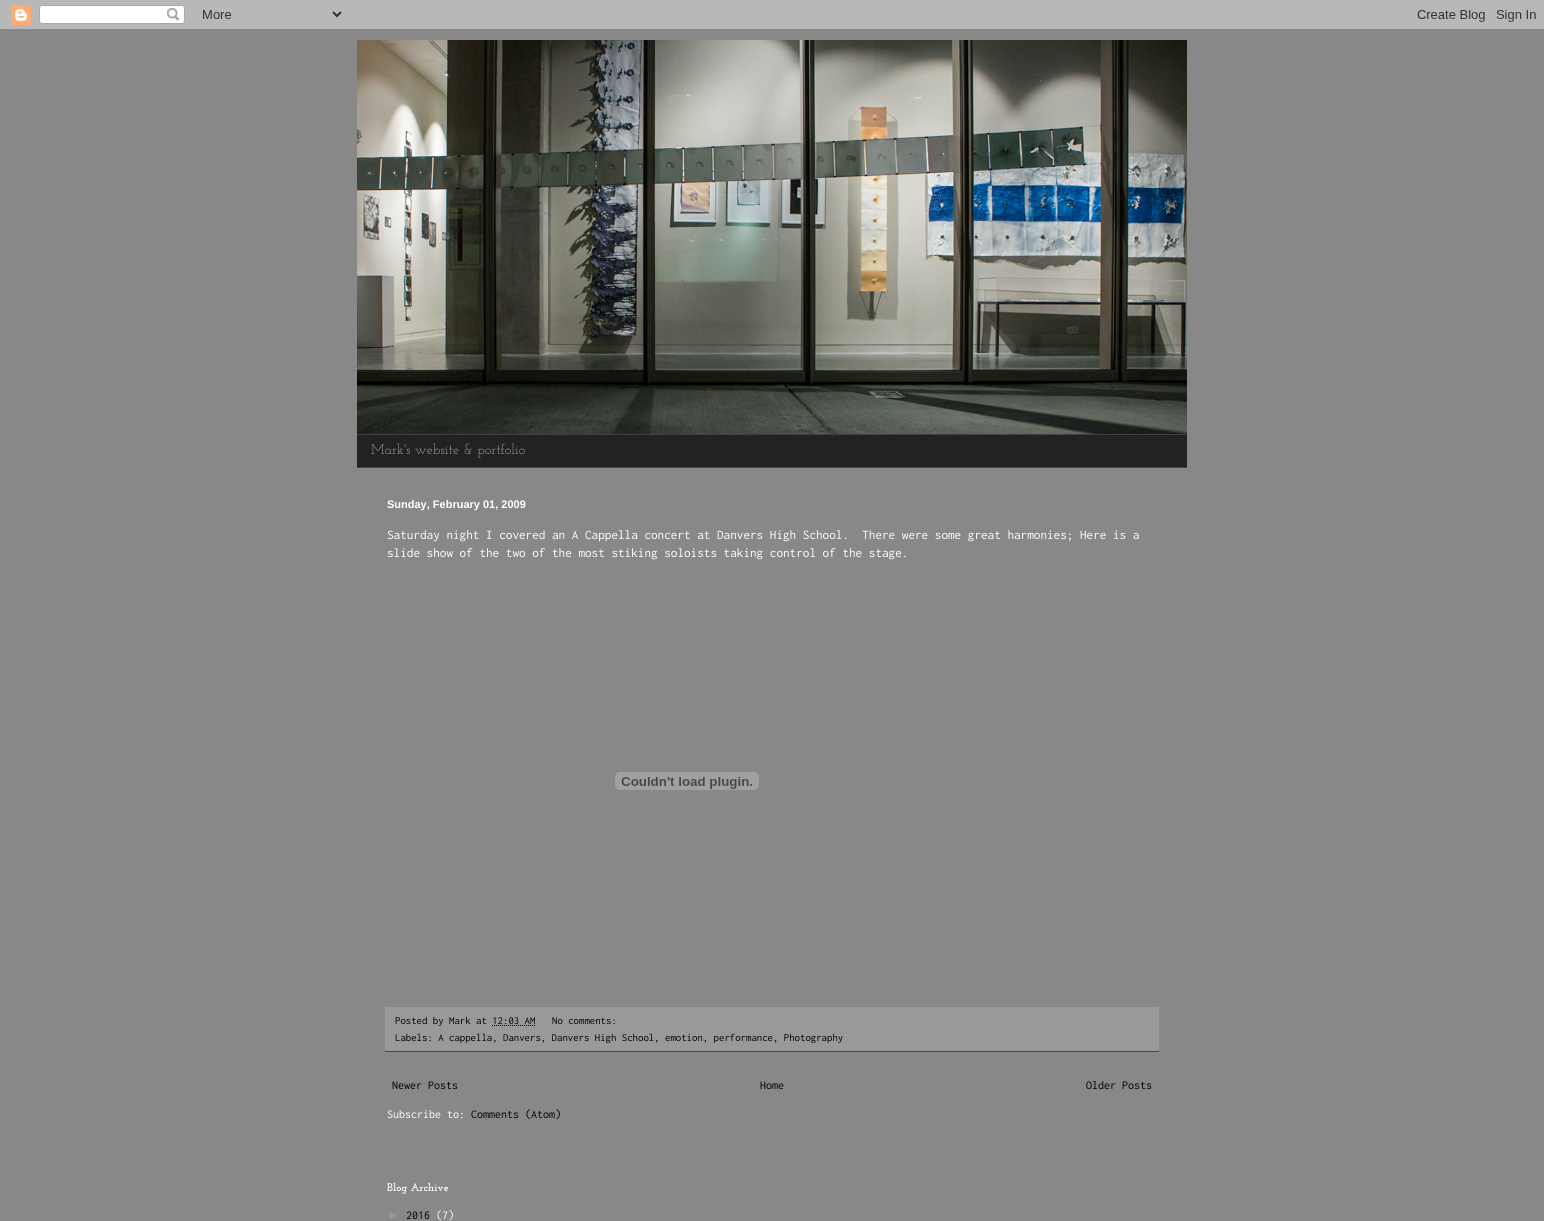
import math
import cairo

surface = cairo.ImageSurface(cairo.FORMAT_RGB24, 1544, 1221)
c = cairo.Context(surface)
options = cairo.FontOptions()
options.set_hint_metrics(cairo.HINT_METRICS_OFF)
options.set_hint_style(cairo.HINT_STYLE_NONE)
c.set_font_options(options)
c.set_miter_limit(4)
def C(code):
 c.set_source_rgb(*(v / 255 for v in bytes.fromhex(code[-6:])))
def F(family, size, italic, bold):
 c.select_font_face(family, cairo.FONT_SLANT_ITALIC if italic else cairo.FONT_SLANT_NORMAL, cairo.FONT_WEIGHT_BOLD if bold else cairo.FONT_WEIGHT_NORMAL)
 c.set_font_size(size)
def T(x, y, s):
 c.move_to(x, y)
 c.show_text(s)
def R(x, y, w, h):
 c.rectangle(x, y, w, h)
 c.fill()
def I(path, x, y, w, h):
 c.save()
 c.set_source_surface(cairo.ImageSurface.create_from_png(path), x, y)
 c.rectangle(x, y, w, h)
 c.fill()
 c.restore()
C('888888')
c.paint()
I('1.png',0,0,1544,30)
I('2.png',357,40,830,394)
C('222222')
R(357,435,830,32)
C('404040')
R(357,434,830,1)
R(357,467,830,1)
F('Josefin Slab',14,0,0)
C('999999')
T(371,454,'Mark\'s website & portfolio')
F('Liberation Sans',11,0,1)
C('ffffff')
T(387,508,'Sunday, February 01, 2009')
F('Inconsolata',13.2,0,0)
T(387,539,'Saturday night I covered an A Cappella concert at Danvers High School.  There were some great harmonies; Here is a')
T(387,557,'slide show of the two of the most stiking soloists taking control of the stage.')
I('3.png',615,772,144,18)
C('999999')
R(385,1007,774,44)
C('444444')
R(385,1051,774,1)
F('Inconsolata',10.8,0,0)
C('000000')
T(395,1024,'Posted by Mark at 12:03 AM')
T(552,1024,'No comments:')
c.new_path()
c.move_to(492,1025.5)
c.line_to(535.5,1025.5)
c.set_line_width(1)
c.set_dash([1,1])
c.stroke()
T(395,1041,'Labels: A cappella, Danvers, Danvers High School, emotion, performance, Photography')
F('Inconsolata',12,0,0)
T(392,1089,'Newer Posts')
T(760,1089,'Home')
T(1086,1089,'Older Posts')
C('ffffff')
T(387,1118,'Subscribe to:')
C('000000')
T(471,1118,'Comments (Atom)')
F('Josefin Slab',11,0,1)
C('ffffff')
T(387,1191,'Blog Archive')
F('Liberation Sans',12,0,0)
C('999999')
T(387,1219,'►')
F('Inconsolata',12,0,0)
C('000000')
T(406,1219,'2016')
C('ffffff')
T(436,1219,'(7)')
surface.write_to_png('o.png')
